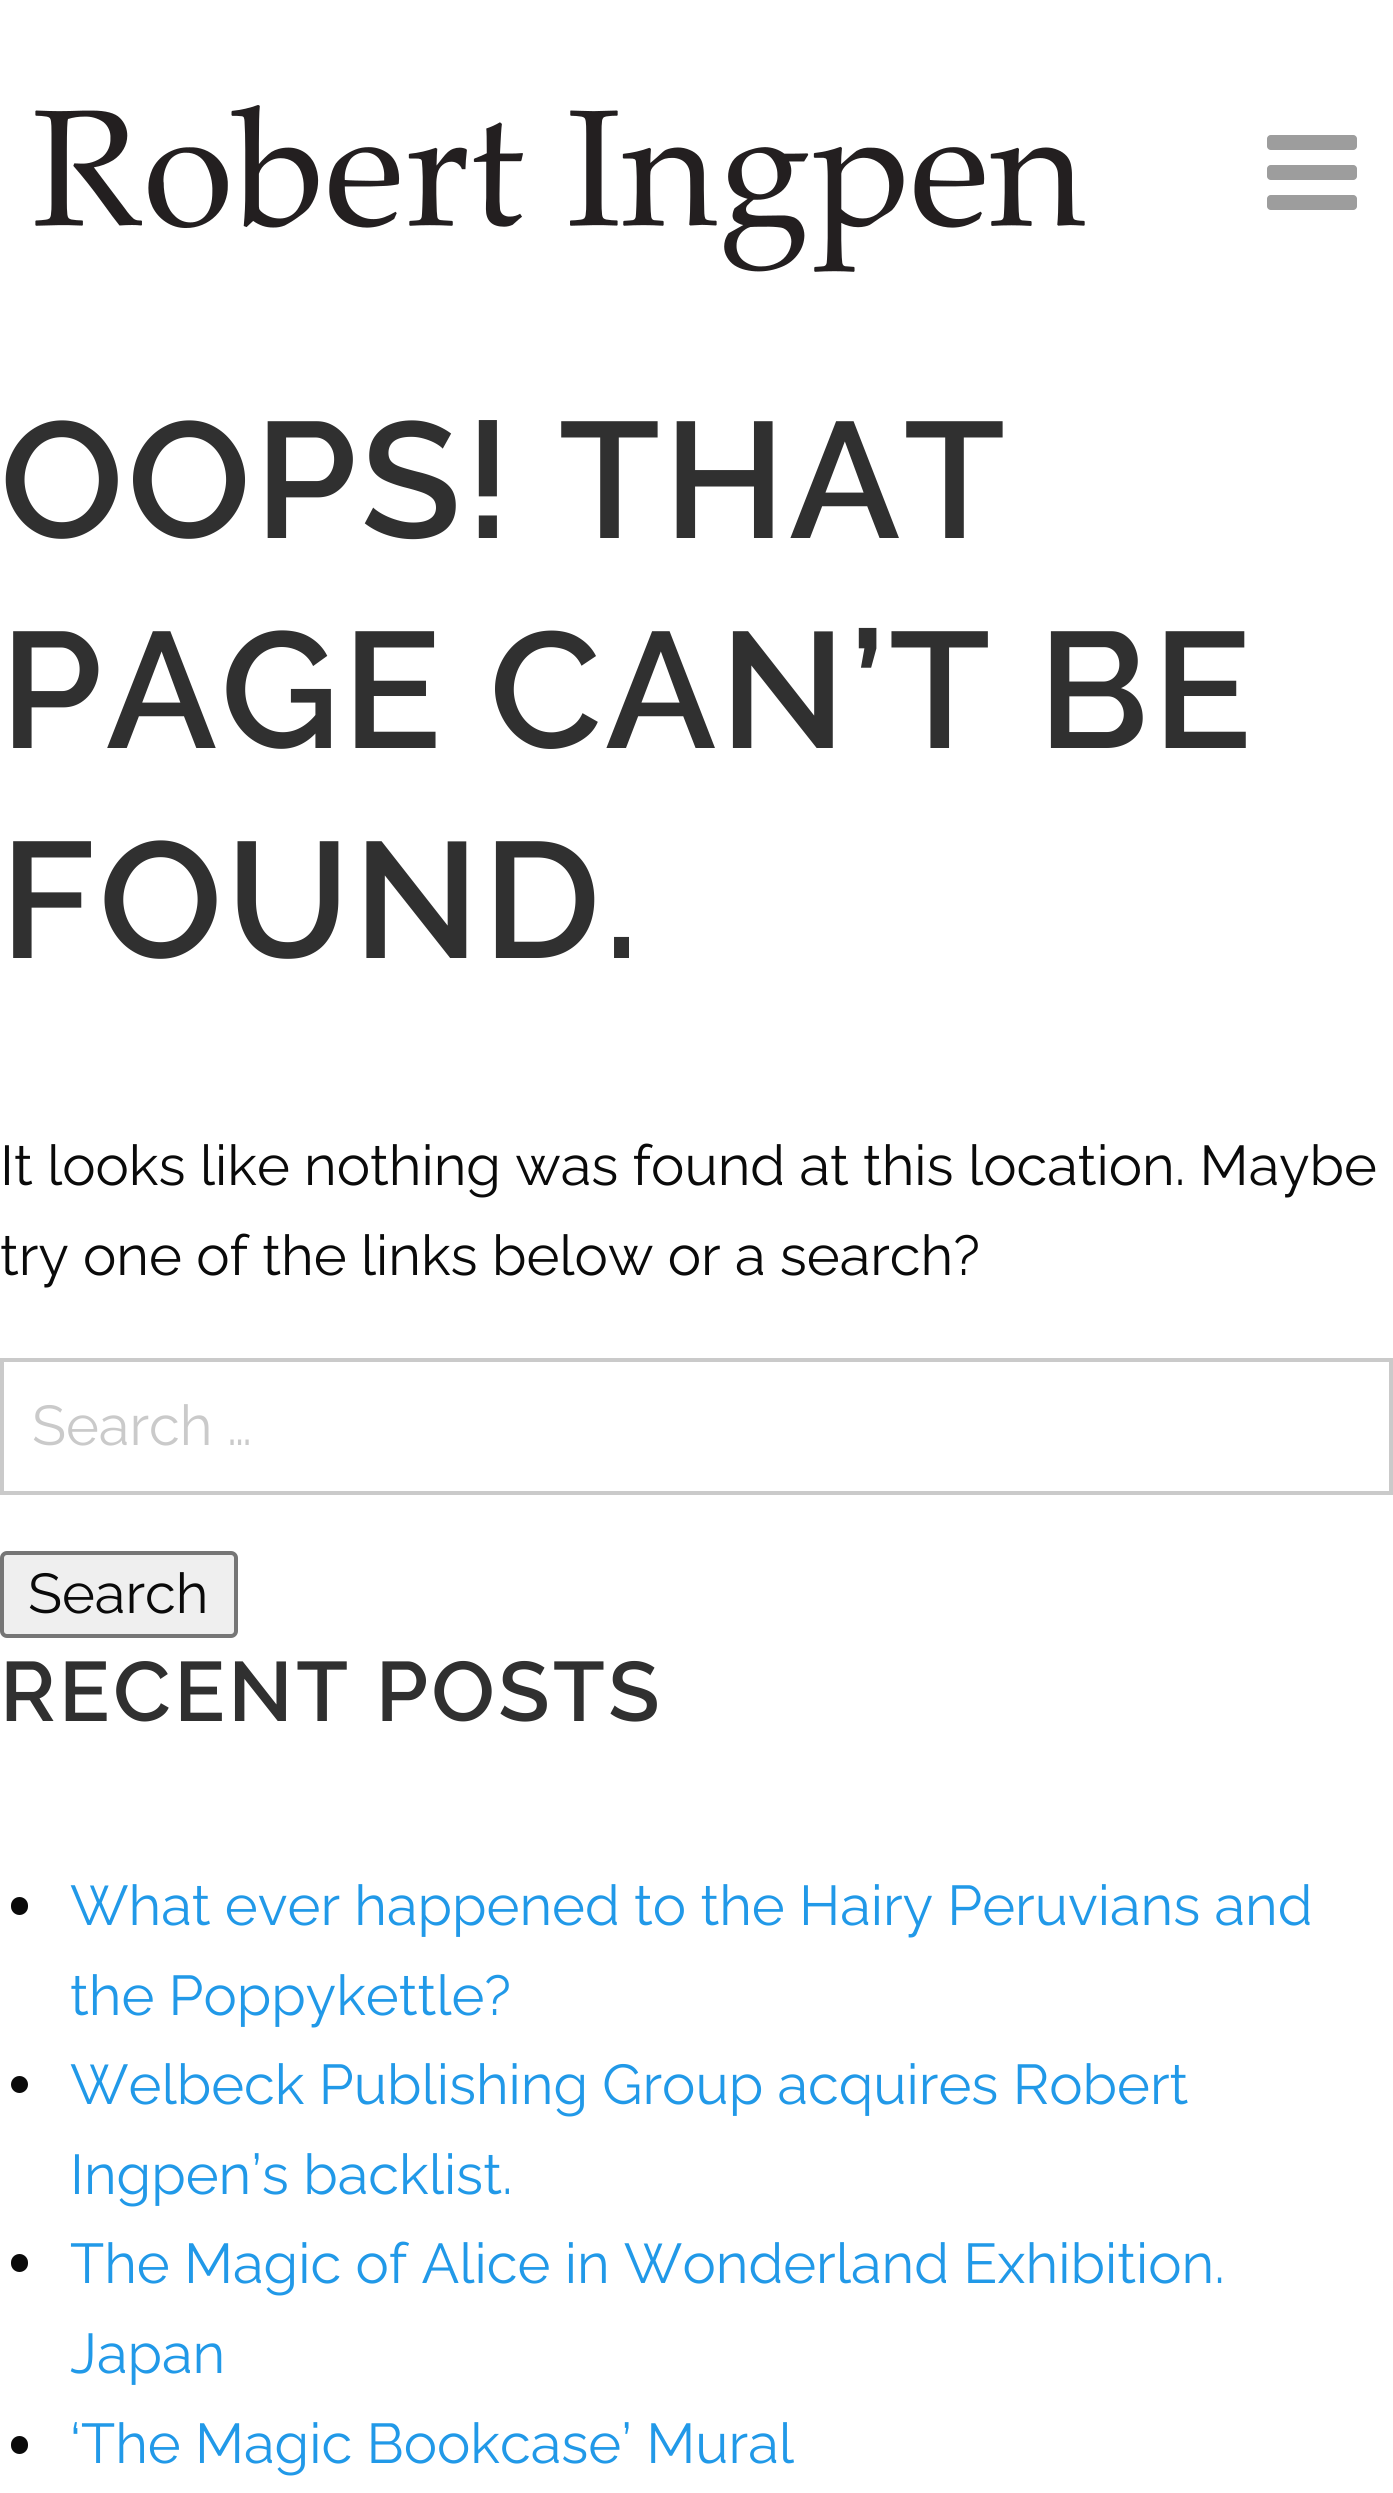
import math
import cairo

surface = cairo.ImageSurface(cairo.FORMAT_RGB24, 1393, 2493)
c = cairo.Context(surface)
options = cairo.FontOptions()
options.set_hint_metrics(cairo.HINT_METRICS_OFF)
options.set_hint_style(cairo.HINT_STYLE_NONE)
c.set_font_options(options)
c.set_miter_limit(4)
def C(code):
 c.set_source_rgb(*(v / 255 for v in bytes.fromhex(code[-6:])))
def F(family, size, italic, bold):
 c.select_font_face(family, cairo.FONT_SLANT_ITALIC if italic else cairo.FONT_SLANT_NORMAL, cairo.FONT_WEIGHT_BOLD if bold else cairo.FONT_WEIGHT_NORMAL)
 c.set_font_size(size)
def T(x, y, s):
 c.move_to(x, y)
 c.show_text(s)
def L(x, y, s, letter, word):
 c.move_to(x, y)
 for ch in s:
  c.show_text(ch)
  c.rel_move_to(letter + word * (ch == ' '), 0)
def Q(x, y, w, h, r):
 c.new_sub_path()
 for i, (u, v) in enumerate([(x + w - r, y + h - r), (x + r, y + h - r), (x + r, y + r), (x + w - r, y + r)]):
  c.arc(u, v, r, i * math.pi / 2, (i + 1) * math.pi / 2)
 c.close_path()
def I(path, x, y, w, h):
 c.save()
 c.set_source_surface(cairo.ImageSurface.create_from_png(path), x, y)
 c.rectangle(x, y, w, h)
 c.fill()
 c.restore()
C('ffffff')
c.paint()
I('1.png',35,105,1050,167)
I('2.png',1267,135,90,75)
F('Raleway SemiBold',164.5,0,0)
C('303030')
L(0,538,'OOPS! THAT',3.5,0)
L(0,748,'PAGE CAN’T BE',3.5,0)
L(0,958,'FOUND.',3.5,0)
F('Raleway',56,0,0)
C('0a0a0a')
T(0,1185,'It looks like nothing was found at this location. Maybe')
T(0,1275,'try one of the links below or a search?')
c.rectangle(2,1360,1389,133)
C('cacaca')
c.set_line_width(4)
c.stroke()
T(32,1445,'Search …')
C('efefef')
Q(2,1553,234,83,5)
c.fill_preserve()
C('767676')
c.stroke()
C('0a0a0a')
T(28,1613,'Search')
F('Raleway SemiBold',84,0,0)
C('303030')
L(0,1721,'RECENT POSTS',3.5,0)
C('0a0a0a')
Q(11,1897,17,18,8.5)
c.fill()
F('Raleway',56,0,0)
C('2199e8')
T(70,1925,'What ever happened to the Hairy Peruvians and')
T(70,2015,'the Poppykettle?')
C('0a0a0a')
c.new_path()
c.arc(19.5,2084.5,8.5,0,2 * math.pi)
c.fill()
C('2199e8')
T(70,2104,'Welbeck Publishing Group acquires Robert')
T(70,2194,'Ingpen’s backlist.')
C('0a0a0a')
Q(11,2254,17,18,8.5)
c.fill()
C('2199e8')
T(70,2283,'The Magic of Alice in Wonderland Exhibition.')
T(70,2373,'Japan')
C('0a0a0a')
Q(11,2436,17,18,8.5)
c.fill()
C('2199e8')
T(70,2463,'‘The Magic Bookcase’ Mural')
surface.write_to_png('o.png')
